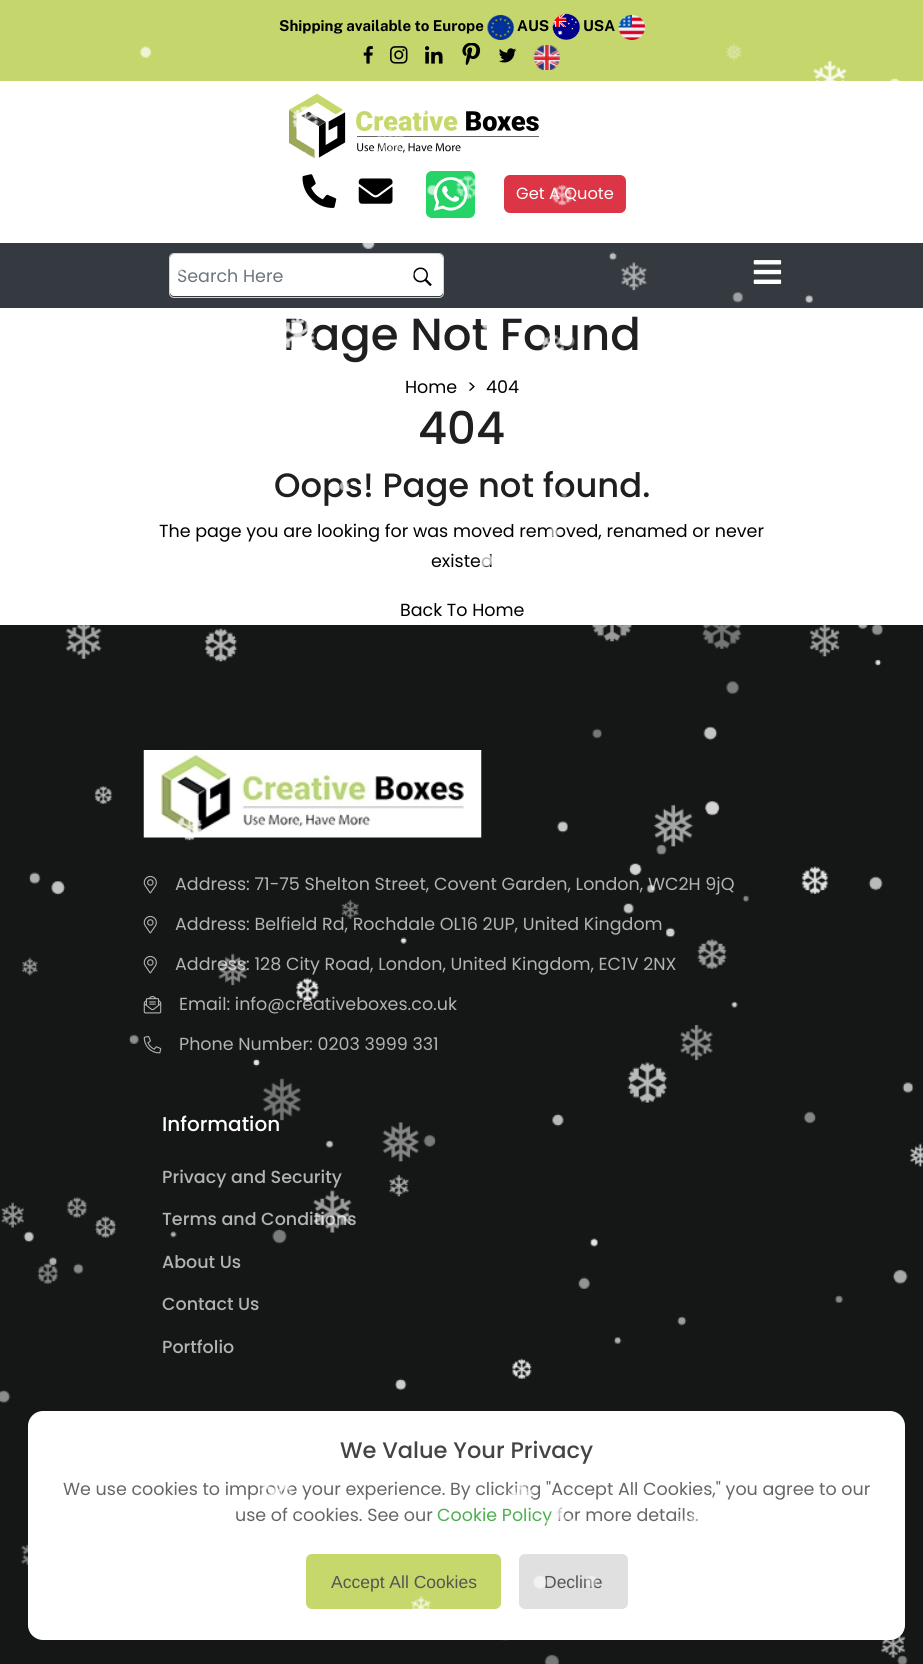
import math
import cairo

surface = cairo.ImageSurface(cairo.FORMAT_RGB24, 923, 1664)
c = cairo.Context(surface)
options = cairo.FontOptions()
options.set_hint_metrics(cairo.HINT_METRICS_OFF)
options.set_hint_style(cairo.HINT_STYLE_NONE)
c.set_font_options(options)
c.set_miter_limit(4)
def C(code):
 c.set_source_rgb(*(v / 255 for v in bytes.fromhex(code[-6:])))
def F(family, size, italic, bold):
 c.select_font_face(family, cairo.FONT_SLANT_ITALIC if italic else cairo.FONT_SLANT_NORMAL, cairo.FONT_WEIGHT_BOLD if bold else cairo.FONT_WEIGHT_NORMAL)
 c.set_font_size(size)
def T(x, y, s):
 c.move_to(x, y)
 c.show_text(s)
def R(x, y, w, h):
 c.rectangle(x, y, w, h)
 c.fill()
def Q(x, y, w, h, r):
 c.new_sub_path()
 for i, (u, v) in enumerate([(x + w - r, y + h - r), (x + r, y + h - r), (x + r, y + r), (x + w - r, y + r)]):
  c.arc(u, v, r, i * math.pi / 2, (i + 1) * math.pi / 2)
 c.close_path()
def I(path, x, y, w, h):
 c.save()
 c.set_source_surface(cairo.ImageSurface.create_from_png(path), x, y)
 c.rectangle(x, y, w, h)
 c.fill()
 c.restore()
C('ffffff')
c.paint()
C('c5d66c')
R(0,0,923,81)
F('Public Sans',15,0,1)
C('000000')
T(279,31,'Shipping available to Europe')
I('1.png',487,15,27,25)
T(517,31,'AUS')
I('2.png',552,13,28,27)
T(583,31,'USA')
I('3.png',618,15,27,25)
I('4.png',363,46,10,18)
I('5.png',390,46,18,18)
I('6.png',425,46,18,18)
I('7.png',462,43,19,22)
I('8.png',499,48,18,15)
I('9.png',533,45,27,25)
I('10.png',289,94,250,65)
I('11.png',302,174,35,34)
I('12.png',358,178,35,26)
C('25d366')
Q(426,171,49,47,6)
c.fill()
I('13.png',433,177,35,34)
C('dc3545')
Q(504,175,122,38,6)
c.fill()
F('Poppins',16.25,0,0)
C('ffffff')
T(516,199,'Get A Quote')
C('343a40')
R(0,243,923,65)
C('ffffff')
Q(170,254,273,42,4)
c.fill()
Q(169.5,253.5,274,44,4.5)
C('ced4da')
c.set_line_width(1)
c.stroke()
F('Poppins',17.5,0,0)
C('6c757d')
T(177,282,'Search Here')
I('14.png',413,267,19,20)
I('15.png',753,260,29,24)
F('Poppins Medium',45,0,0)
C('201f1f')
T(283,350,'Page Not Found')
F('Poppins',17.5,0,0)
C('000000')
T(405,393,'Home')
T(467,393,'>')
T(486,393,'404')
F('Poppins Medium',45,0,0)
C('201f1f')
T(418,444,'404')
F('Poppins Medium',33.75,0,0)
T(274,497,'Oops! Page not found.')
F('Poppins',17.5,0,0)
C('000000')
T(159,537,'The page you are looking for was moved removed, renamed or never')
T(431,567,'existed')
T(400,616,'Back To Home')
C('151616')
R(0,625,923,1039)
I('16.png',143,750,339,88)
I('17.png',143,875,14,19)
C('b4b3b3')
T(175,890,'Address: 71-75 Shelton Street, Covent Garden, London, WC2H 9jQ')
I('17.png',143,915,14,19)
T(175,930,'Address: Belfield Rd, Rochdale OL16 2UP, United Kingdom')
I('17.png',143,955,14,19)
T(175,970,'Address: 128 City Road, London, United Kingdom, EC1V 2NX')
I('18.png',143,995,19,19)
T(179,1010,'Email: info@creativeboxes.co.uk')
I('19.png',143,1036,19,18)
T(179,1050,'Phone Number: 0203 3999 331')
F('Poppins Medium',20,0,0)
C('ffffff')
T(162,1131,'Information')
F('Poppins Medium',17.5,0,0)
C('b4b3b3')
T(162,1183,'Privacy and Security')
T(162,1225,'Terms and Conditions')
T(162,1268,'About Us')
T(162,1310,'Contact Us')
T(162,1353,'Portfolio')
C('ffffff')
Q(28,1411,877,229,15)
c.fill()
F('Poppins Medium',22.5,0,0)
C('444444')
T(340,1458,'We Value Your Privacy')
F('Poppins',17.5,0,0)
C('666666')
T(63,1495,'We use cookies to improve your experience. By clicking "Accept All Cookies," you agree to our')
T(235,1521,'use of cookies. See our')
C('4caf50')
T(437,1521,'Cookie Policy')
C('666666')
T(557,1521,'for more details.')
C('c6d76c')
Q(306,1554,195,55,6)
c.fill()
F('Liberation Sans',17.5,0,0)
C('555555')
T(331,1588,'Accept All Cookies')
C('e0e0e0')
Q(519,1554,109,55,6)
c.fill()
C('555555')
T(544,1588,'Decline')
I('20.png',0,43,923,1621)
surface.write_to_png('o.png')
